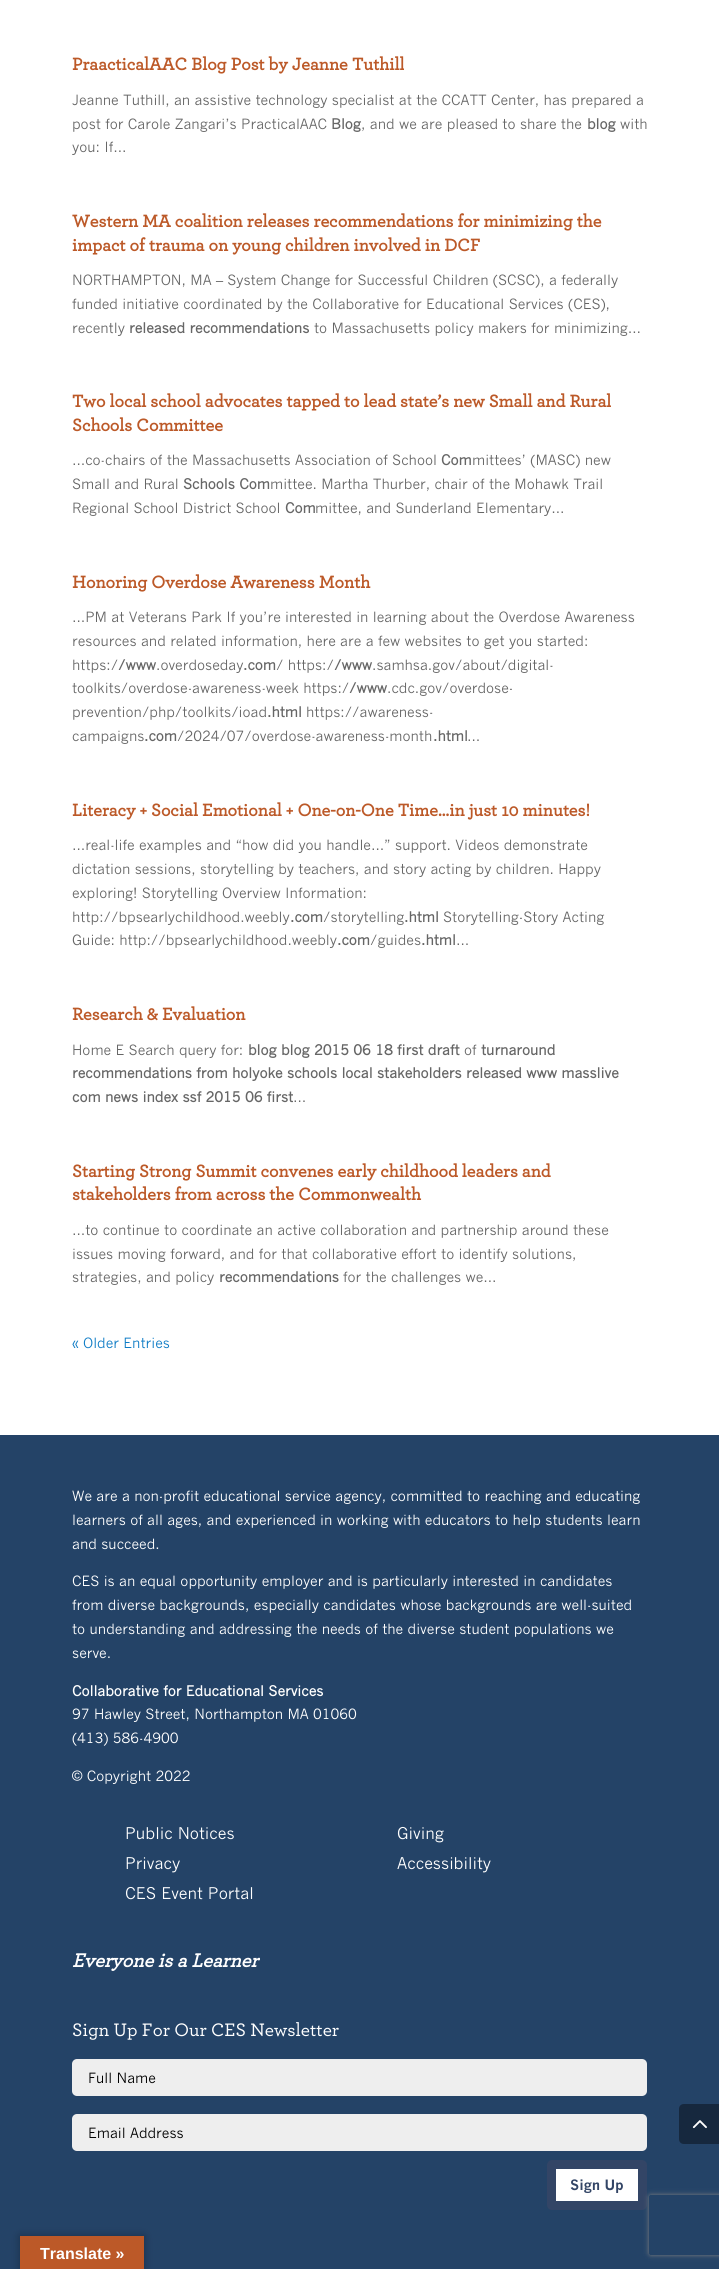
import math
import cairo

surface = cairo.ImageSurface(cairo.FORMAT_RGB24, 719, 2269)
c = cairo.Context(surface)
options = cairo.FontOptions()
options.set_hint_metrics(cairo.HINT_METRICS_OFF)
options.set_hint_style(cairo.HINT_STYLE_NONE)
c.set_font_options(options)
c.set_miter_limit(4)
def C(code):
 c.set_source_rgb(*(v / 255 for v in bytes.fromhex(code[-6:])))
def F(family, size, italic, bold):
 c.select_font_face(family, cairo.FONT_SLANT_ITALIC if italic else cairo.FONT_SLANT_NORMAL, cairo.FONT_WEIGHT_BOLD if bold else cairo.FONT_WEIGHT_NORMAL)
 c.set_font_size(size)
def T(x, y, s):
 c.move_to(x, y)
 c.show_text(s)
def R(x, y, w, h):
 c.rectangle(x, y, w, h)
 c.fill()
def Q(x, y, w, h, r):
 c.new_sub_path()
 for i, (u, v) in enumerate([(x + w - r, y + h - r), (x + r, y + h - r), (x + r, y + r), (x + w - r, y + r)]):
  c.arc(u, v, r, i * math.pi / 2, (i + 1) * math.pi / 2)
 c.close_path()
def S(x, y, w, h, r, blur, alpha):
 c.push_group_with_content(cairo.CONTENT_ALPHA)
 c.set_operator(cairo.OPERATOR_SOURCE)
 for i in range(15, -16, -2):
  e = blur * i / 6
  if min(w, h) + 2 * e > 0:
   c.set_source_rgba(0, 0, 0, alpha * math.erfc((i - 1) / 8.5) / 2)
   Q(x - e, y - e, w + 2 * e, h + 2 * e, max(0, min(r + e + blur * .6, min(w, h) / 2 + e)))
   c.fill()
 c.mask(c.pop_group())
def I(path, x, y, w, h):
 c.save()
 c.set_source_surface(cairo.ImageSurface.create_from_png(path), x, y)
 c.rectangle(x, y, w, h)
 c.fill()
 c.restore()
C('ffffff')
c.paint()
F('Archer',18,0,1)
C('bc5928')
T(72,70,'PraacticalAAC Blog Post by Jeanne Tuthill')
F('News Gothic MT',14,0,0)
C('666666')
T(72,105,'Jeanne Tuthill, an assistive technology specialist at the CCATT Center, has prepared a')
T(72,129,'post for Carole Zangari’s PracticalAAC')
F('News Gothic MT',14,0,1)
T(331,129,'Blog')
F('News Gothic MT',14,0,0)
T(361,129,', and we are pleased to share the')
F('News Gothic MT',14,0,1)
T(587,129,'blog')
F('News Gothic MT',14,0,0)
T(620,129,'with')
T(72,152,'you: If…')
F('Archer',18,0,1)
C('bc5928')
T(72,227,'Western MA coalition releases recommendations for minimizing the')
T(72,251,'impact of trauma on young children involved in DCF')
F('News Gothic MT',14,0,0)
C('666666')
T(72,285,'NORTHAMPTON, MA – System Change for Successful Children (SCSC), a federally')
T(72,309,'funded initiative coordinated by the Collaborative for Educational Services (CES),')
T(72,333,'recently')
F('News Gothic MT',14,0,1)
T(129,333,'released recommendations')
F('News Gothic MT',14,0,0)
T(314,333,'to Massachusetts policy makers for minimizing…')
F('Archer',18,0,1)
C('bc5928')
T(72,407,'Two local school advocates tapped to lead state’s new Small and Rural')
T(72,431,'Schools Committee')
F('News Gothic MT',14,0,0)
C('666666')
T(72,465,'…co-chairs of the Massachusetts Association of School')
F('News Gothic MT',14,0,1)
T(441,465,'Com')
F('News Gothic MT',14,0,0)
T(472,465,'mittees’ (MASC) new')
T(72,489,'Small and Rural')
F('News Gothic MT',14,0,1)
T(183,489,'Schools Com')
F('News Gothic MT',14,0,0)
T(270,489,'mittee. Martha Thurber, chair of the Mohawk Trail')
T(72,513,'Regional School District School')
F('News Gothic MT',14,0,1)
T(285,513,'Com')
F('News Gothic MT',14,0,0)
T(315,513,'mittee, and Sunderland Elementary…')
F('Archer',18,0,1)
C('bc5928')
T(72,588,'Honoring Overdose Awareness Month')
F('News Gothic MT',14,0,0)
C('666666')
T(72,622,'…PM at Veterans Park If you’re interested in learning about the Overdose Awareness')
T(72,646,'resources and related information, here are a few websites to get you started:')
T(72,670,'https:/')
F('News Gothic MT',14,0,1)
T(118,670,'/www')
F('News Gothic MT',14,0,0)
T(156,670,'.overdoseday')
F('News Gothic MT',14,0,1)
T(243,670,'.com')
F('News Gothic MT',14,0,0)
T(276,670,'/ https:/')
F('News Gothic MT',14,0,1)
T(334,670,'/www')
F('News Gothic MT',14,0,0)
T(372,670,'.samhsa.gov/about/digital-')
T(72,693,'toolkits/overdose-awareness-week https:/')
F('News Gothic MT',14,0,1)
T(349,693,'/www')
F('News Gothic MT',14,0,0)
T(387,693,'.cdc.gov/overdose-')
T(72,717,'prevention/php/toolkits/ioad')
F('News Gothic MT',14,0,1)
T(267,717,'.html')
F('News Gothic MT',14,0,0)
T(306,717,'https://awareness-')
T(72,741,'campaigns')
F('News Gothic MT',14,0,1)
T(144,741,'.com')
F('News Gothic MT',14,0,0)
T(177,741,'/2024/07/overdose-awareness-month')
F('News Gothic MT',14,0,1)
T(433,741,'.html')
F('News Gothic MT',14,0,0)
T(467,741,'…')
F('Archer',18,0,1)
C('bc5928')
T(72,816,'Literacy + Social Emotional + One-on-One Time…in just 10 minutes!')
F('News Gothic MT',14,0,0)
C('666666')
T(72,850,'…real-life examples and “how did you handle…” support. Videos demonstrate')
T(72,874,'dictation sessions, storytelling by teachers, and story acting by children. Happy')
T(72,898,'exploring! Storytelling Overview Information:')
T(72,922,'http://bpsearlychildhood.weebly')
F('News Gothic MT',14,0,1)
T(290,922,'.com')
F('News Gothic MT',14,0,0)
T(323,922,'/storytelling')
F('News Gothic MT',14,0,1)
T(404,922,'.html')
F('News Gothic MT',14,0,0)
T(443,922,'Storytelling-Story Acting')
T(72,945,'Guide: http://bpsearlychildhood.weebly')
F('News Gothic MT',14,0,1)
T(337,945,'.com')
F('News Gothic MT',14,0,0)
T(370,945,'/guides')
F('News Gothic MT',14,0,1)
T(421,945,'.html')
F('News Gothic MT',14,0,0)
T(456,945,'…')
F('Archer',18,0,1)
C('bc5928')
T(72,1020,'Research & Evaluation')
F('News Gothic MT',14,0,0)
C('666666')
T(72,1055,'Home E Search query for:')
F('News Gothic MT',14,0,1)
T(248,1055,'blog blog 2015 06 18 first draft')
F('News Gothic MT',14,0,0)
T(464,1055,'of')
F('News Gothic MT',14,0,1)
T(481,1055,'turnaround')
T(72,1078,'recommendations from holyoke schools local stakeholders released www masslive')
T(72,1102,'com news index ssf 2015 06 first')
F('News Gothic MT',14,0,0)
T(293,1102,'…')
F('Archer',18,0,1)
C('bc5928')
T(72,1177,'Starting Strong Summit convenes early childhood leaders and')
T(72,1200,'stakeholders from across the Commonwealth')
F('News Gothic MT',14,0,0)
C('666666')
T(72,1235,'…to continue to coordinate an active collaboration and partnership around these')
T(72,1259,'issues moving forward, and for that collaborative effort to identify solutions,')
T(72,1282,'strategies, and policy')
F('News Gothic MT',14,0,1)
T(219,1282,'recommendations')
F('News Gothic MT',14,0,0)
T(343,1282,'for the challenges we…')
C('0d7bc5')
T(72,1348,'« Older Entries')
C('244367')
R(0,1435,719,834)
C('ffffff')
T(72,1501,'We are a non-profit educational service agency, committed to reaching and educating')
T(72,1525,'learners of all ages, and experienced in working with educators to help students learn')
T(72,1549,'and succeed.')
T(72,1586,'CES is an equal opportunity employer and is particularly interested in candidates')
T(72,1610,'from diverse backgrounds, especially candidates whose backgrounds are well-suited')
T(72,1634,'to understanding and addressing the needs of the diverse student populations we')
T(72,1658,'serve.')
F('News Gothic MT',14,0,1)
T(72,1696,'Collaborative for Educational Services')
F('News Gothic MT',14,0,0)
T(72,1719,'97 Hawley Street, Northampton MA 01060')
T(72,1743,'(413) 586-4900')
T(72,1781,'© Copyright 2022')
F('News Gothic MT',16,0,0)
T(125,1839,'Public Notices')
T(397,1839,'Giving')
T(125,1869,'Privacy')
T(397,1869,'Accessibility')
T(125,1899,'CES Event Portal')
F('Archer',20,1,1)
T(72,1967,'Everyone is a Learner')
F('Archer Medium',19,0,0)
T(72,2036,'Sign Up For Our CES Newsletter')
C('eeeeee')
Q(72,2059,575,37,5)
c.fill()
F('News Gothic MT',14,0,0)
C('000000')
T(88,2083,'Full Name')
C('eeeeee')
Q(72,2114,575,37,5)
c.fill()
C('000000')
T(88,2138,'Email Address')
C('ffffff')
Q(551.5,2164.5,91,41,.5)
c.fill_preserve()
C('334566')
c.set_line_width(9)
c.stroke()
F('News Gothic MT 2',14,0,1)
T(570,2190,'Sign Up')
C('16283e')
c.new_path()
c.move_to(684,2104)
c.line_to(719,2104)
c.line_to(719,2144)
c.line_to(684,2144)
c.curve_to(681,2144,679,2142,679,2139)
c.line_to(679,2109)
c.curve_to(679,2106,681,2104,684,2104)
c.close_path()
c.fill()
I('1.png',692,2120,15,9)
C('000000')
S(20,2236,124,33,0,4.5,.3)
C('bc5928')
R(20,2236,124,33)
F('Liberation Sans',16,0,1)
C('ffffff')
T(40,2259,'Translate »')
c.save()
c.set_fill_rule(cairo.FILL_RULE_EVEN_ODD)
c.new_path()
c.move_to(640,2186)
c.line_to(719,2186)
c.line_to(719,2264)
c.line_to(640,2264)
c.close_path()
c.move_to(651,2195)
c.line_to(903,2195)
c.curve_to(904,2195,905,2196,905,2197)
c.line_to(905,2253)
c.curve_to(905,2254,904,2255,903,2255)
c.line_to(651,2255)
c.curve_to(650,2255,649,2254,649,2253)
c.line_to(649,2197)
c.curve_to(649,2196,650,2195,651,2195)
c.close_path()
c.clip()
C('808080')
S(649,2195,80,60,2,2.5,1)
c.restore()
surface.write_to_png('o.png')
